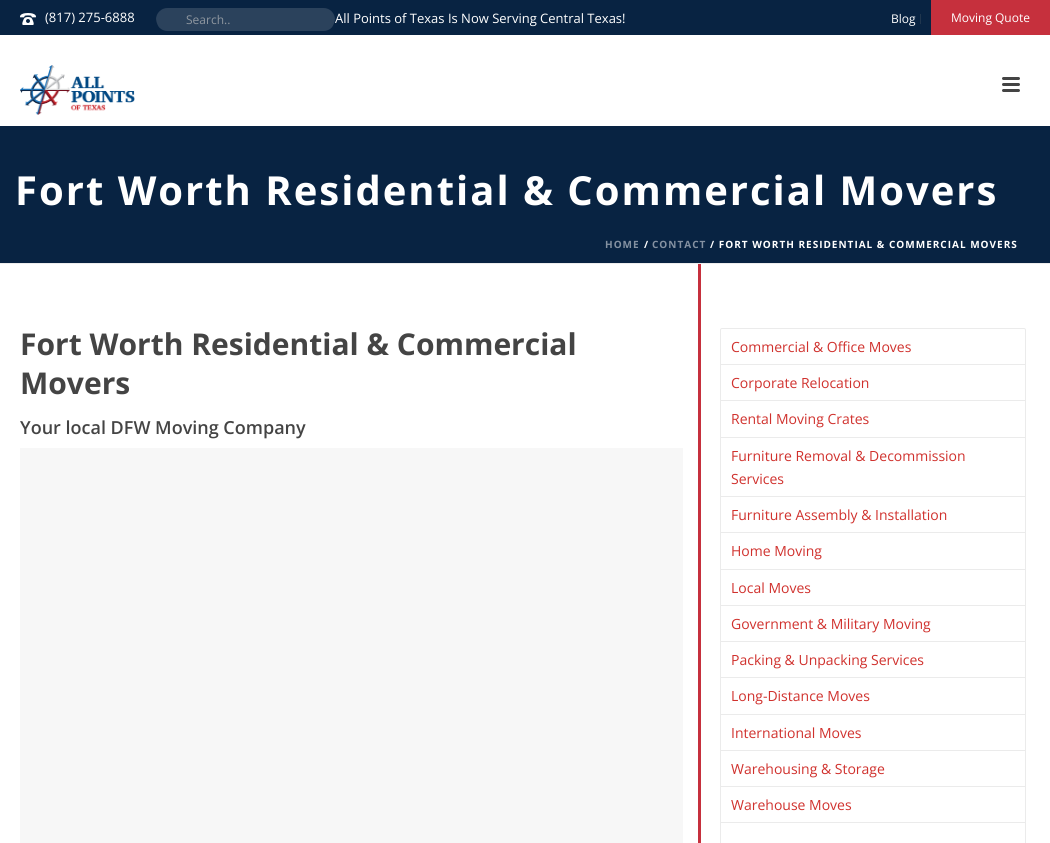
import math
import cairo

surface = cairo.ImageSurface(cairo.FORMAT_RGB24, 1050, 843)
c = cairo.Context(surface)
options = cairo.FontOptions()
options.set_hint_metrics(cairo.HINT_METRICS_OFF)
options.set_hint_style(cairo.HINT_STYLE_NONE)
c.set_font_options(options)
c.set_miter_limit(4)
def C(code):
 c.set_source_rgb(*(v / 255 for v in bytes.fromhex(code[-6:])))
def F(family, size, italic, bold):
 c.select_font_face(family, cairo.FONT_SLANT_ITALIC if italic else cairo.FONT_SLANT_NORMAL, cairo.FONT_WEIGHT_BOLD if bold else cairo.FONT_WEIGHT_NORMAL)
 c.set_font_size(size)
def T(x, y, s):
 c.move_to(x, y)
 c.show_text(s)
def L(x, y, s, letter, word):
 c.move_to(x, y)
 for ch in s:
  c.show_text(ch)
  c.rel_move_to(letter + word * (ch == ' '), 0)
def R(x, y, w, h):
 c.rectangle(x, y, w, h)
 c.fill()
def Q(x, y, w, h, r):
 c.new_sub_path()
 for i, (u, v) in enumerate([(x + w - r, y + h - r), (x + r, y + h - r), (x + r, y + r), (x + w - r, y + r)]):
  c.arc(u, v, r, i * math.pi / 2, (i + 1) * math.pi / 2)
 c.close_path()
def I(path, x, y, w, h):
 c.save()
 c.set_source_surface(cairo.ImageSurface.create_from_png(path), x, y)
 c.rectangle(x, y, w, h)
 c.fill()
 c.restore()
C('ffffff')
c.paint()
C('082342')
R(0,0,1050,263)
C('ededed')
R(0,263,1050,1)
I('1.png',20,13,16,12)
F('Open Sans',13,0,0)
C('ffffff')
T(45,22,'(817) 275-6888')
T(335,23,'All Points of Texas Is Now Serving Central Texas!')
c.save()
Q(156,0,179,35,17.5)
c.clip()
C('2b425c')
Q(156,8,179,23,11.5)
c.fill()
c.restore()
F('Open Sans',12,0,0)
C('8e969f')
T(186,24,'Search..')
C('20364e')
R(920,14,1,10)
C('ffffff')
T(891,23,'Blog')
C('c6303d')
R(931,0,119,35)
C('ffffff')
T(951,22,'Moving Quote')
R(0,35,1050,91)
I('2.png',20,65,115,50)
C('444444')
Q(1002,77,18,3,1.5)
c.fill()
Q(1002,83,18,3,1.5)
c.fill()
Q(1002,89,18,3,1.5)
c.fill()
F('Open Sans',40,0,1)
C('ffffff')
L(15,205,'Fort Worth Residential & Commercial Movers',2,0)
F('Open Sans',10,0,1)
C('8491a1')
L(605,248,'HOME',1,0)
C('ffffff')
L(644,248,'/',1,0)
C('8491a1')
L(652,248,'CONTACT',1,0)
C('ffffff')
L(710,248,'/ FORT WORTH RESIDENTIAL & COMMERCIAL MOVERS',1,0)
F('Open Sans',30,0,1)
C('444444')
T(20,355,'Fort Worth Residential & Commercial')
T(20,394,'Movers')
F('Open Sans SemiBold',18,0,0)
T(20,434,'Your local DFW Moving Company')
C('f7f7f7')
R(20,448,663,395)
C('c6303d')
R(698,264,3,579)
Q(720.5,328.5,305,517,1.5)
C('ebebeb')
c.set_line_width(1)
c.stroke()
R(721,364,304,1)
F('Open Sans',14,0,0)
C('d0312d')
T(731,352,'Commercial & Office Moves')
C('ebebeb')
R(721,400,304,1)
C('d0312d')
T(731,388,'Corporate Relocation')
C('ebebeb')
R(721,437,304,1)
C('d0312d')
T(731,424,'Rental Moving Crates')
C('ebebeb')
R(721,496,304,1)
C('d0312d')
T(731,461,'Furniture Removal & Decommission')
T(731,484,'Services')
C('ebebeb')
R(721,532,304,1)
C('d0312d')
T(731,520,'Furniture Assembly & Installation')
C('ebebeb')
R(721,569,304,1)
C('d0312d')
T(731,556,'Home Moving')
C('ebebeb')
R(721,605,304,1)
C('d0312d')
T(731,593,'Local Moves')
C('ebebeb')
R(721,641,304,1)
C('d0312d')
T(731,629,'Government & Military Moving')
C('ebebeb')
R(721,677,304,1)
C('d0312d')
T(731,665,'Packing & Unpacking Services')
C('ebebeb')
R(721,714,304,1)
C('d0312d')
T(731,701,'Long-Distance Moves')
C('ebebeb')
R(721,750,304,1)
C('d0312d')
T(731,738,'International Moves')
C('ebebeb')
R(721,786,304,1)
C('d0312d')
T(731,774,'Warehousing & Storage')
C('ebebeb')
R(721,822,304,1)
C('d0312d')
T(731,810,'Warehouse Moves')
surface.write_to_png('o.png')
